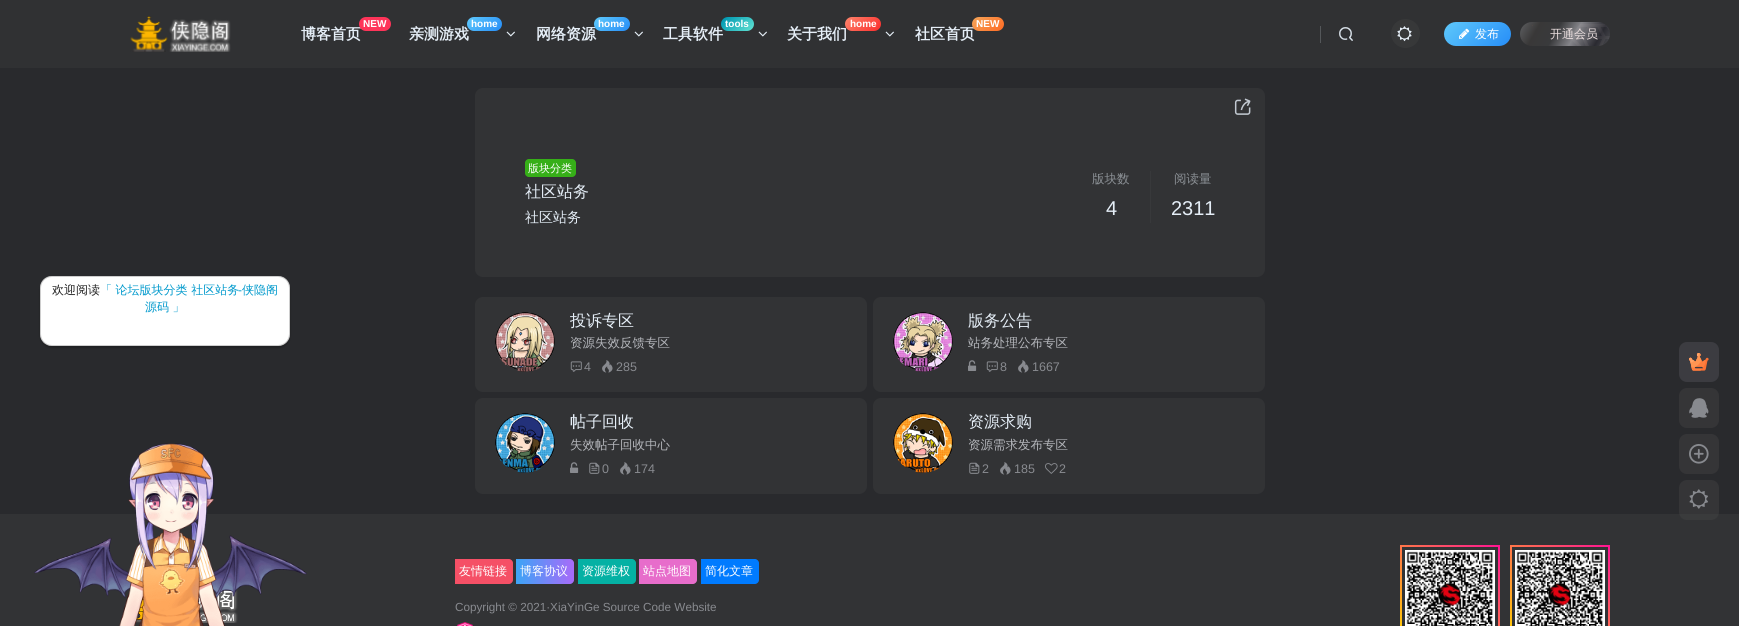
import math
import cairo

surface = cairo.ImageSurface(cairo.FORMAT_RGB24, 1739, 626)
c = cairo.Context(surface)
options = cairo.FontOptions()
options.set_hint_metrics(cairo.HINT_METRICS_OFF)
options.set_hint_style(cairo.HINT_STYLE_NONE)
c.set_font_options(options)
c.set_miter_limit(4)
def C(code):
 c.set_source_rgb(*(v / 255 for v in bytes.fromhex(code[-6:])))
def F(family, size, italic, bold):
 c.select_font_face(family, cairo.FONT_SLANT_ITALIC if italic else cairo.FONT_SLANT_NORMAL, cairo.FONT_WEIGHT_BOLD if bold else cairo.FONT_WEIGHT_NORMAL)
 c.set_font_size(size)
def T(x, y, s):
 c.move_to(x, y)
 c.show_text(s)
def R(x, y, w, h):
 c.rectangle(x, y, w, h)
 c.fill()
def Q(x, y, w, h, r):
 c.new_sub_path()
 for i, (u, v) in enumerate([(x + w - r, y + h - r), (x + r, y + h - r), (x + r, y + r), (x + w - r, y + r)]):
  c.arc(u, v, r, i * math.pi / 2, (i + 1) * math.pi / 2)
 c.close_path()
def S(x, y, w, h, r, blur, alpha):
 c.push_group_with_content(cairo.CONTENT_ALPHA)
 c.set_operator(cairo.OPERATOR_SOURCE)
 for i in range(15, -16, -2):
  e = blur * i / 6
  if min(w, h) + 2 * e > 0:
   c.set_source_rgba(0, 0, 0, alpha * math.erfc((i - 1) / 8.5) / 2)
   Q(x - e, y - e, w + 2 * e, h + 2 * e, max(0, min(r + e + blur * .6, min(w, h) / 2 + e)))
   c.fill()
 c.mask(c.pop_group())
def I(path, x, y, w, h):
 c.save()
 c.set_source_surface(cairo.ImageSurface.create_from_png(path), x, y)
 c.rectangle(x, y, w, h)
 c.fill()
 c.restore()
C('292a2d')
c.paint()
C('303133')
R(0,0,1739,68)
I('1.png',130,16,101,36)
F('WenQuanYi Zen Hei',15,0,1)
C('e5eef7')
T(301,39,'博客首页')
C('fe3459')
Q(359,17,32,14,7)
c.fill()
F('Liberation Sans',10,0,1)
C('ffffff')
T(363,27,'NEW')
F('WenQuanYi Zen Hei',15,0,1)
C('e5eef7')
T(409,39,'亲测游戏')
gradient = cairo.LinearGradient(472,12,497,36)
gradient.add_color_stop_rgba(.1,0.349,0.765,0.984,1)
gradient.add_color_stop_rgba(1,0.149,0.553,0.969,1)
c.set_source(gradient)
Q(467,17,35,14,7)
c.fill()
F('Liberation Sans',10,0,1)
C('ffffff')
T(471,27,'home')
I('2.png',506,31,9,6)
F('WenQuanYi Zen Hei',15,0,1)
C('e5eef7')
T(536,39,'网络资源')
gradient = cairo.LinearGradient(600,12,624,36)
gradient.add_color_stop_rgba(.1,0.349,0.765,0.984,1)
gradient.add_color_stop_rgba(1,0.149,0.553,0.969,1)
c.set_source(gradient)
Q(594,17,36,14,7)
c.fill()
F('Liberation Sans',10,0,1)
C('ffffff')
T(598,27,'home')
I('2.png',634,31,9,6)
F('WenQuanYi Zen Hei',15,0,1)
C('e5eef7')
T(663,39,'工具软件')
gradient = cairo.LinearGradient(727,12,748,36)
gradient.add_color_stop_rgba(.1,0.012,0.604,0.702,1)
gradient.add_color_stop_rgba(.9,0.345,0.859,0.812,1)
c.set_source(gradient)
Q(721,17,33,14,7)
c.fill()
F('Liberation Sans',10,0,1)
C('ffffff')
T(725,27,'tools')
I('2.png',758,31,9,6)
F('WenQuanYi Zen Hei',15,0,1)
C('e5eef7')
T(787,39,'关于我们')
gradient = cairo.LinearGradient(851,12,876,36)
gradient.add_color_stop_rgba(.1,0.992,0.478,0.392,1)
gradient.add_color_stop_rgba(1,0.984,0.176,0.176,1)
c.set_source(gradient)
Q(845,17,36,14,7)
c.fill()
F('Liberation Sans',10,0,1)
C('ffffff')
T(850,27,'home')
I('2.png',885,31,9,6)
F('WenQuanYi Zen Hei',15,0,1)
C('e5eef7')
T(915,39,'社区首页')
gradient = cairo.LinearGradient(977,12,1000,36)
gradient.add_color_stop_rgba(.1,0.961,0.624,0.329,1)
gradient.add_color_stop_rgba(1,1,0.412,0.133,1)
c.set_source(gradient)
Q(972,17,32,14,7)
c.fill()
F('Liberation Sans',10,0,1)
C('ffffff')
T(976,27,'NEW')
C('54575a')
R(1320,26,1,17)
I('3.png',1339,27,14,14)
C('373839')
c.arc(1405.5,33.5,14.5,0,2 * math.pi)
c.fill()
I('4.png',1397,26,15,16)
gradient = cairo.LinearGradient(1455,11,1500,57)
gradient.add_color_stop_rgba(.1,0.349,0.765,0.984,1)
gradient.add_color_stop_rgba(1,0.149,0.553,0.969,1)
c.set_source(gradient)
Q(1444,22,67,24,12)
c.fill()
I('5.png',1459,28,11,11)
F('WenQuanYi Zen Hei Medium',12,0,0)
C('ffffff')
T(1475,38,'发布')
gradient = cairo.LinearGradient(1604,56,1526,12)
gradient.add_color_stop_rgba(0,0.298,0.302,0.318,1)
gradient.add_color_stop_rgba(.15,0.165,0.165,0.192,1)
gradient.add_color_stop_rgba(.4,0.522,0.522,0.541,1)
gradient.add_color_stop_rgba(.6,0.224,0.227,0.235,1)
gradient.add_color_stop_rgba(.8,0.224,0.22,0.22,1)
gradient.add_color_stop_rgba(1,0.369,0.373,0.384,1)
c.set_source(gradient)
Q(1520,22,90,24,12)
c.fill()
C('4e4745')
R(1532,25,1,1)
C('ece0e0')
T(1550,38,'开通会员')
I('6.png',1570,24,40,22)
C('000000')
S(40,278,250,70,12,1,.24)
C('ffffff')
Q(40,276,250,70,12)
c.fill()
Q(40.5,276.5,249,69,11.5)
c.set_source_rgba(0.518,0.518,0.518,0.4)
c.set_line_width(1)
c.stroke()
C('212121')
T(52,294,'欢迎阅读')
C('0099cc')
T(100,294,'「 论坛版块分类 社区站务')
F('Liberation Sans',12,0,0)
T(238,294,'-')
F('WenQuanYi Zen Hei Medium',12,0,0)
T(242,294,'侠隐阁')
T(145,311,'源码 」')
C('323335')
R(0,514,1739,112)
I('22.png',125,588,113,35)
I('7.png',34,443,273,183)
Q(475,88,790,189,8)
c.fill()
I('8.png',1234,98,17,17)
C('36af18')
Q(525,159,51,18,4)
c.fill()
F('WenQuanYi Zen Hei Medium',11,0,0)
C('ffffff')
T(528,172,'版块分类')
F('WenQuanYi Zen Hei Medium',16,0,0)
C('e5eef7')
T(525,197,'社区站务')
F('WenQuanYi Zen Hei Medium',14,0,0)
T(525,222,'社区站务')
F('WenQuanYi Zen Hei Medium',12.5,0,0)
C('8c9196')
T(1092,183,'版块数')
F('Liberation Sans',20,0,0)
C('e5eef7')
T(1106,215,'4')
C('38393b')
R(1150,171,1,52)
F('WenQuanYi Zen Hei Medium',12.5,0,0)
C('8c9196')
T(1174,183,'阅读量')
F('Liberation Sans',20,0,0)
C('e5eef7')
T(1171,215,'2311')
C('323335')
Q(475,297,392,95,8)
c.fill()
I('9.png',495,312,60,60)
c.save()
c.rectangle(570,312,64,17)
c.clip()
F('WenQuanYi Zen Hei Medium',16,0,0)
C('e5eef7')
T(570,326,'投诉专区')
c.restore()
F('WenQuanYi Zen Hei Medium',12.5,0,0)
C('b4b6bb')
T(570,347,'资源失效反馈专区')
I('10.png',570,361,12,11)
F('Liberation Sans',12.5,0,0)
C('888a8f')
T(584,371,'4')
I('11.png',602,360,11,13)
T(616,371,'285')
C('323335')
Q(873,297,392,95,8)
c.fill()
I('12.png',893,312,60,60)
F('WenQuanYi Zen Hei Medium',16,0,0)
C('e5eef7')
T(968,326,'版务公告')
c.save()
c.rectangle(968,312,277,65)
c.clip()
F('WenQuanYi Zen Hei Medium',12.5,0,0)
C('b4b6bb')
T(968,347,'站务处理公布专区')
c.restore()
I('13.png',968,360,9,11)
I('10.png',986,361,12,11)
F('Liberation Sans',12.5,0,0)
C('888a8f')
T(1000,371,'8')
I('11.png',1018,360,11,13)
T(1032,371,'1667')
C('323335')
Q(475,398,392,96,8)
c.fill()
I('14.png',495,413,60,60)
F('WenQuanYi Zen Hei Medium',16,0,0)
C('e5eef7')
T(570,427,'帖子回收')
F('WenQuanYi Zen Hei Medium',12.5,0,0)
C('b4b6bb')
T(570,449,'失效帖子回收中心')
I('13.png',570,462,9,11)
I('15.png',589,462,11,12)
F('Liberation Sans',12.5,0,0)
C('888a8f')
T(602,473,'0')
I('11.png',620,462,11,13)
T(634,473,'174')
C('323335')
Q(873,398,392,96,8)
c.fill()
I('16.png',893,413,60,60)
F('WenQuanYi Zen Hei Medium',16,0,0)
C('e5eef7')
T(968,427,'资源求购')
F('WenQuanYi Zen Hei Medium',12.5,0,0)
C('b4b6bb')
T(968,449,'资源需求发布专区')
I('15.png',969,462,11,12)
F('Liberation Sans',12.5,0,0)
C('888a8f')
T(982,473,'2')
I('11.png',1000,462,11,13)
T(1014,473,'185')
I('17.png',1045,463,13,11)
T(1059,473,'2')
C('3c3c41')
Q(1679,342,40,40,8)
c.fill()
I('18.png',1689,353,20,18)
C('353537')
Q(1679,388,40,40,8)
c.fill()
I('19.png',1689,398,20,20)
Q(1679,434,40,40,8)
c.fill()
I('20.png',1689,444,20,20)
c.set_source_rgba(0.275,0.275,0.275,0.4)
Q(1679,480,40,40,8)
c.fill()
I('21.png',1689,489,19,20)
C('f55066')
c.new_path()
c.move_to(455,559)
c.line_to(509,559)
c.curve_to(511,559,513,561,513,563)
c.line_to(513,580)
c.curve_to(513,582,511,584,509,584)
c.line_to(455,584)
c.close_path()
c.fill()
F('WenQuanYi Zen Hei Medium',12,0,0)
C('ffffff')
T(459,575,'友情链接')
gradient = cairo.LinearGradient(516,572,574,572)
gradient.add_color_stop_rgba(0,0.235,0.647,0.965,1)
gradient.add_color_stop_rgba(1,0.659,0.416,0.976,1)
c.set_source(gradient)
c.new_path()
c.move_to(516,559)
c.line_to(570,559)
c.curve_to(572,559,574,561,574,563)
c.line_to(574,580)
c.curve_to(574,582,572,584,570,584)
c.line_to(516,584)
c.close_path()
c.fill()
C('ffffff')
T(520,575,'博客协议')
C('05b1a4')
c.new_path()
c.move_to(578,559)
c.line_to(632,559)
c.curve_to(634,559,636,561,636,563)
c.line_to(636,580)
c.curve_to(636,582,634,584,632,584)
c.line_to(578,584)
c.close_path()
c.fill()
C('ffffff')
T(582,575,'资源维权')
C('e76dcb')
c.new_path()
c.move_to(639,559)
c.line_to(693,559)
c.curve_to(695,559,697,561,697,563)
c.line_to(697,580)
c.curve_to(697,582,695,584,693,584)
c.line_to(639,584)
c.close_path()
c.fill()
C('ffffff')
T(643,575,'站点地图')
C('007bff')
c.new_path()
c.move_to(701,559)
c.line_to(755,559)
c.curve_to(757,559,759,561,759,563)
c.line_to(759,580)
c.curve_to(759,582,757,584,755,584)
c.line_to(701,584)
c.close_path()
c.fill()
C('ffffff')
T(705,575,'简化文章')
F('Liberation Sans',11.7,0,0)
C('888a8f')
T(455,611,'Copyright © 2021·XiaYinGe Source Code Website')
I('23.png',457,622,16,4)
I('25.png',1405,550,90,76)
I('24.png',1400,545,100,81)
I('25.png',1515,550,90,76)
I('26.png',1510,545,100,81)
surface.write_to_png('o.png')
